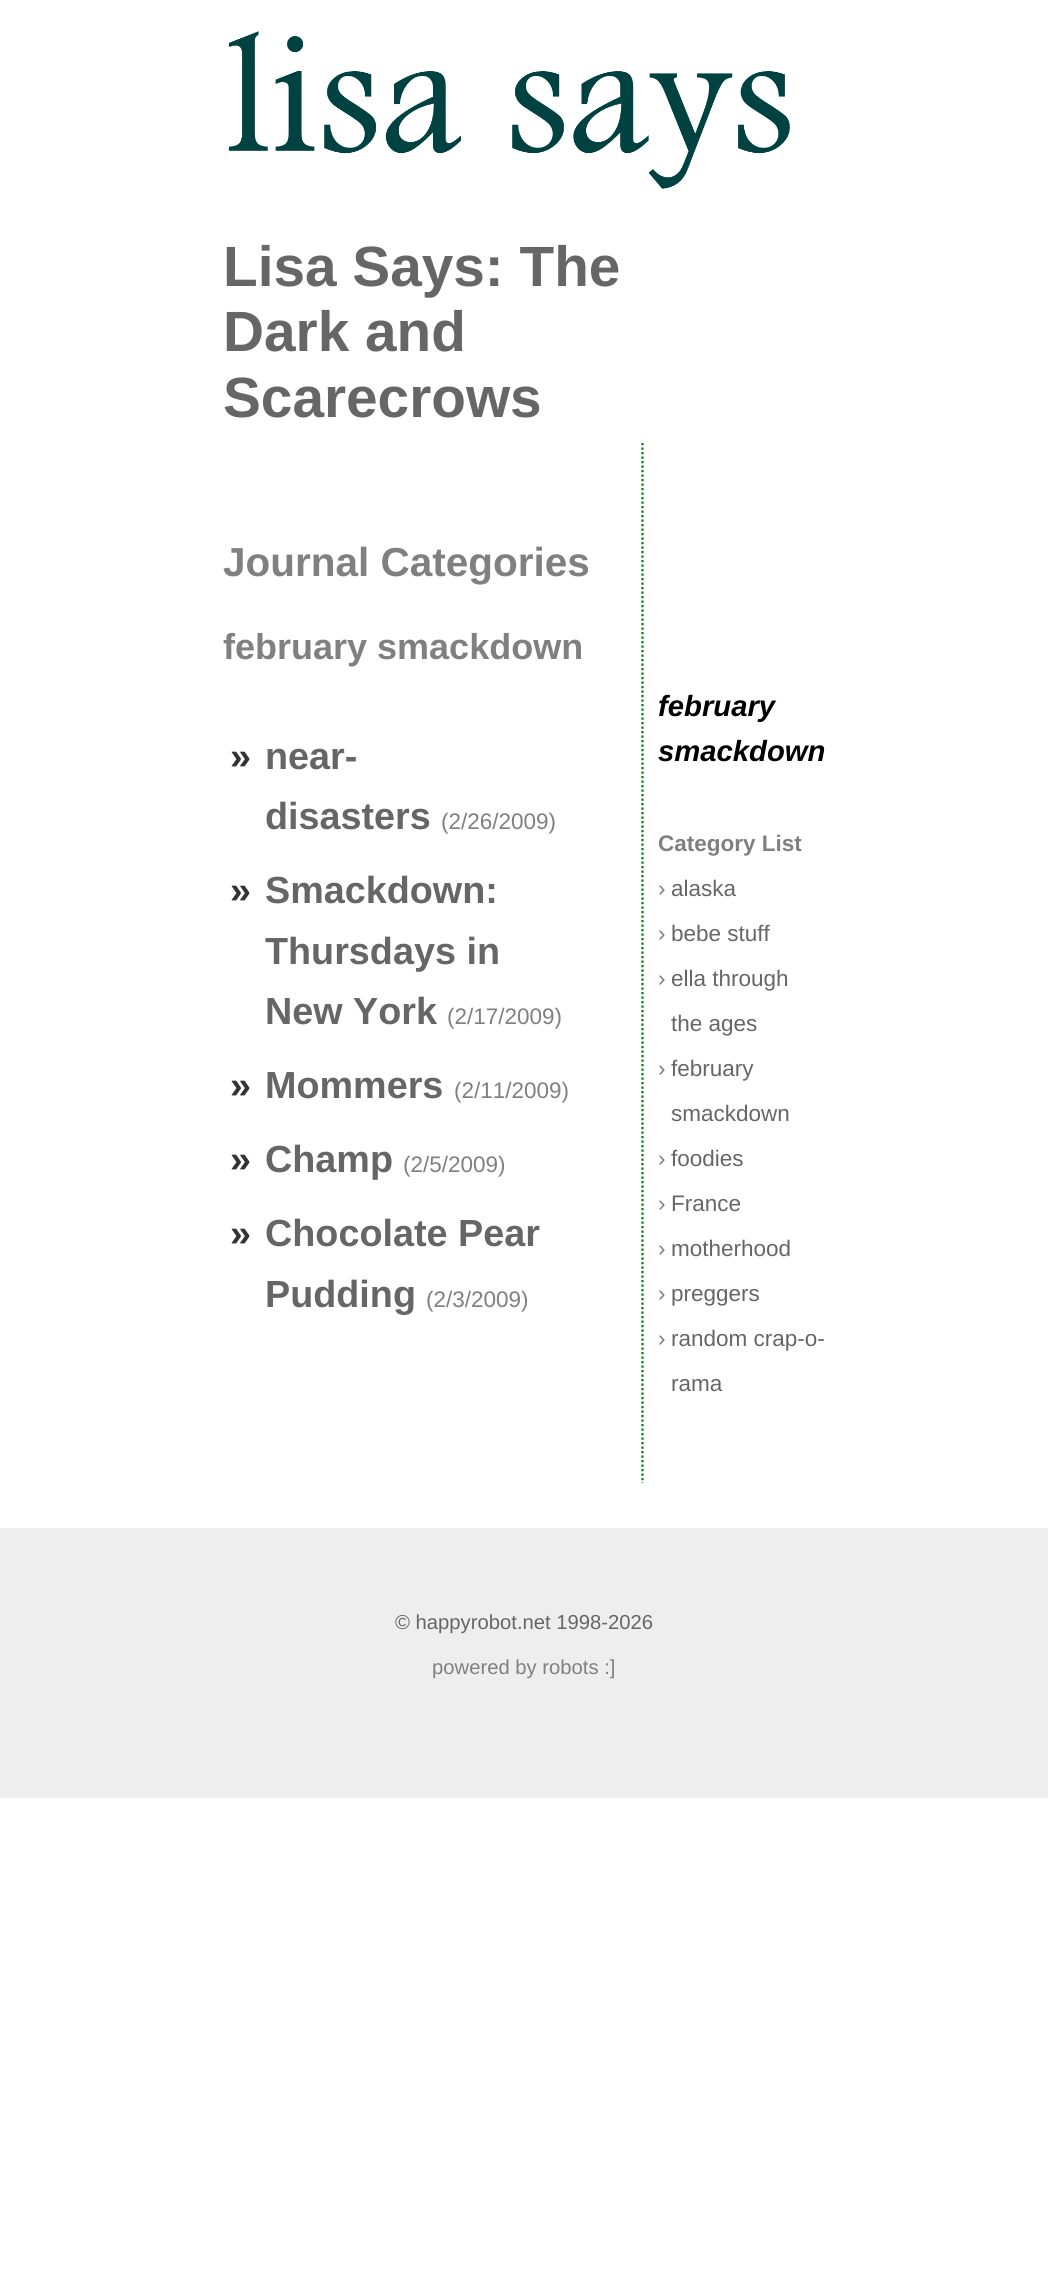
import math
import cairo

surface = cairo.ImageSurface(cairo.FORMAT_RGB24, 1048, 2280)
c = cairo.Context(surface)
options = cairo.FontOptions()
options.set_hint_metrics(cairo.HINT_METRICS_OFF)
options.set_hint_style(cairo.HINT_STYLE_NONE)
c.set_font_options(options)
c.set_miter_limit(4)
def C(code):
 c.set_source_rgb(*(v / 255 for v in bytes.fromhex(code[-6:])))
def F(family, size, italic, bold):
 c.select_font_face(family, cairo.FONT_SLANT_ITALIC if italic else cairo.FONT_SLANT_NORMAL, cairo.FONT_WEIGHT_BOLD if bold else cairo.FONT_WEIGHT_NORMAL)
 c.set_font_size(size)
def T(x, y, s):
 c.move_to(x, y)
 c.show_text(s)
def R(x, y, w, h):
 c.rectangle(x, y, w, h)
 c.fill()
def I(path, x, y, w, h):
 c.save()
 c.set_source_surface(cairo.ImageSurface.create_from_png(path), x, y)
 c.rectangle(x, y, w, h)
 c.fill()
 c.restore()
C('ffffff')
c.paint()
I('1.png',228,31,562,158)
F('Liberation Sans',56.75,0,1)
C('666666')
T(223,286,'Lisa Says: The')
T(223,351,'Dark and')
T(223,417,'Scarecrows')
F('Liberation Sans',40.5,0,1)
C('808080')
T(223,576,'Journal Categories')
F('Liberation Sans',36,0,1)
T(223,659,'february smackdown')
F('Liberation Sans',37.75,0,1)
C('333333')
T(230,769,'»')
C('666666')
T(265,769,'near-')
T(265,829,'disasters')
F('Liberation Sans',22.5,0,0)
C('808080')
T(441,829,'(2/26/2009)')
F('Liberation Sans',37.75,0,1)
C('333333')
T(230,903,'»')
C('666666')
T(265,903,'Smackdown:')
T(265,964,'Thursdays in')
T(265,1024,'New York')
F('Liberation Sans',22.5,0,0)
C('808080')
T(447,1024,'(2/17/2009)')
F('Liberation Sans',37.75,0,1)
C('333333')
T(230,1098,'»')
C('666666')
T(265,1098,'Mommers')
F('Liberation Sans',22.5,0,0)
C('808080')
T(454,1098,'(2/11/2009)')
F('Liberation Sans',37.75,0,1)
C('333333')
T(230,1172,'»')
C('666666')
T(265,1172,'Champ')
F('Liberation Sans',22.5,0,0)
C('808080')
T(403,1172,'(2/5/2009)')
F('Liberation Sans',37.75,0,1)
C('333333')
T(230,1246,'»')
C('666666')
T(265,1246,'Chocolate Pear')
T(265,1307,'Pudding')
F('Liberation Sans',22.5,0,0)
C('808080')
T(426,1307,'(2/3/2009)')
c.new_path()
c.move_to(642.5,443)
c.line_to(642.5,1483)
C('008000')
c.set_line_width(2.2)
c.set_dash([2.25,2.25])
c.stroke()
F('Liberation Sans',29.25,1,1)
C('000000')
T(658,716,'february')
T(658,761,'smackdown')
F('Liberation Sans',22.5,0,1)
C('808080')
T(658,851,'Category List')
F('Liberation Sans',22.5,0,0)
T(658,896,'›')
C('666666')
T(671,896,'alaska')
C('808080')
T(658,941,'›')
C('666666')
T(671,941,'bebe stuff')
C('808080')
T(658,986,'›')
C('666666')
T(671,986,'ella through')
T(671,1031,'the ages')
C('808080')
T(658,1076,'›')
C('666666')
T(671,1076,'february')
T(671,1121,'smackdown')
C('808080')
T(658,1166,'›')
C('666666')
T(671,1166,'foodies')
C('808080')
T(658,1211,'›')
C('666666')
T(671,1211,'France')
C('808080')
T(658,1256,'›')
C('666666')
T(671,1256,'motherhood')
C('808080')
T(658,1301,'›')
C('666666')
T(671,1301,'preggers')
C('808080')
T(658,1346,'›')
C('666666')
T(671,1346,'random crap-o-')
T(671,1391,'rama')
C('eeeeee')
R(0,1528,1048,270)
F('Liberation Sans',20.25,0,0)
C('666666')
T(395,1629,'© happyrobot.net 1998-2026')
C('808080')
T(432,1674,'powered by robots :]')
surface.write_to_png('o.png')
